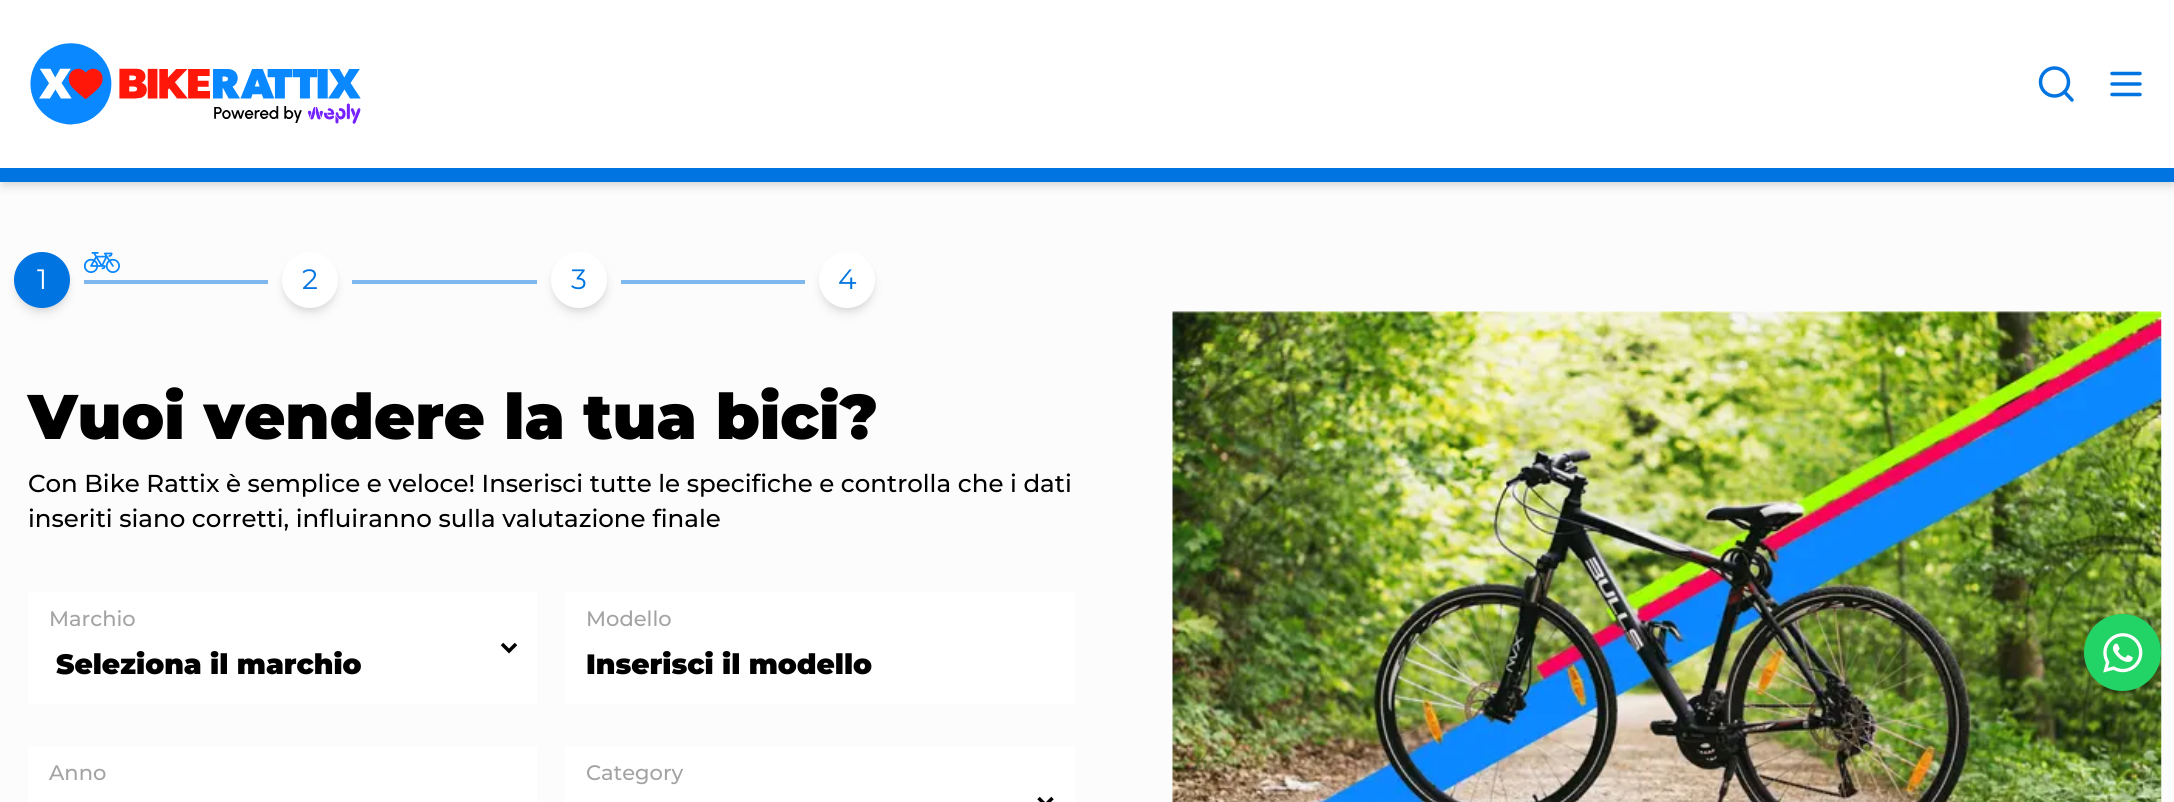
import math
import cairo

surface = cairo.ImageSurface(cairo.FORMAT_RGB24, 2174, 802)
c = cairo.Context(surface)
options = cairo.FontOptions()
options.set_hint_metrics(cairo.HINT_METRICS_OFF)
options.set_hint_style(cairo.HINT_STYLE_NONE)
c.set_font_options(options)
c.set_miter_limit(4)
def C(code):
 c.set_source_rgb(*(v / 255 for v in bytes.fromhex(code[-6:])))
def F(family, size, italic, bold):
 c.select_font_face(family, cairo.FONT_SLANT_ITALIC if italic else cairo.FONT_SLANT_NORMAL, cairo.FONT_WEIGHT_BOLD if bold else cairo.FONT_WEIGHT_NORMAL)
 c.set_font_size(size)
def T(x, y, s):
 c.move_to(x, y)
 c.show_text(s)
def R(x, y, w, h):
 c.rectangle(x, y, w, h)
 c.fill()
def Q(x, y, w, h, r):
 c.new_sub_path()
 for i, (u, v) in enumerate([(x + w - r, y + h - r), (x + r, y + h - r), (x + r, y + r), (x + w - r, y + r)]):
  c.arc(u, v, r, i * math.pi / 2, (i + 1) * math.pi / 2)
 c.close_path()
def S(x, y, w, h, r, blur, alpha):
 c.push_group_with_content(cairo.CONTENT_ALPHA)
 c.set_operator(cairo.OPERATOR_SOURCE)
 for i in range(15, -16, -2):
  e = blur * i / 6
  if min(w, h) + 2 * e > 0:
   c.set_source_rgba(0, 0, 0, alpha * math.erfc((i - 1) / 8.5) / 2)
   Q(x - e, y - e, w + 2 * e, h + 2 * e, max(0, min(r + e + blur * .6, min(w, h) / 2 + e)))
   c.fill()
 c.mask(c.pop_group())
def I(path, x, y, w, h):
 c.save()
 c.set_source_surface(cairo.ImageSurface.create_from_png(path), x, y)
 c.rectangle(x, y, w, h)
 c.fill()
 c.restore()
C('fcfcfc')
c.paint()
C('000000')
S(4,7,2168,175,0,3.5,.1)
S(2,9,2172,178,0,5,.1)
C('ffffff')
R(0,0,2174,168)
I('1.png',30,43,331,82)
c.arc(2054.5,82,14,0,2 * math.pi)
C('0074e0')
c.set_line_width(3.5)
c.stroke()
c.new_path()
c.move_to(2072,100)
c.line_to(2064.5,92)
c.set_line_cap(cairo.LINE_CAP_ROUND)
c.set_line_join(cairo.LINE_JOIN_ROUND)
c.stroke()
c.new_path()
c.move_to(2112,84)
c.line_to(2140,84)
c.move_to(2112,73.5)
c.line_to(2140,73.5)
c.move_to(2112,94.5)
c.line_to(2140,94.5)
c.stroke()
R(0,168,2174,14)
C('7eb8ee')
R(84,280,184,4)
I('2.png',84,252,36,21)
C('000000')
S(18,259,49,49,24.5,3.5,.1)
S(16,261,52,52,26,5,.1)
C('0074e0')
c.arc(42,280,28,0,2 * math.pi)
c.fill()
F('Montserrat',28,0,0)
C('ffffff')
T(37,289,'1')
C('7eb8ee')
R(352,280,185,4)
C('000000')
S(285,259,49,49,24.5,3.5,.1)
S(284,261,52,52,26,5,.1)
C('ffffff')
c.arc(310,280,28,0,2 * math.pi)
c.fill()
C('0074e0')
T(302,289,'2')
C('7eb8ee')
R(621,280,184,4)
C('000000')
S(555,259,49,49,24.5,3.5,.1)
S(553,261,53,52,26,5,.1)
C('ffffff')
c.arc(579,280,28,0,2 * math.pi)
c.fill()
C('0074e0')
T(571,289,'3')
C('000000')
S(823,259,49,49,24.5,3.5,.1)
S(821,261,52,52,26,5,.1)
C('ffffff')
c.arc(847,280,28,0,2 * math.pi)
c.fill()
C('0074e0')
T(838,289,'4')
F('Montserrat Black',63,0,0)
C('000000')
T(28,439,'Vuoi vendere la tua bici?')
F('Montserrat Medium',24.5,0,0)
T(28,492,'Con Bike Rattix è semplice e veloce! Inserisci tutte le specifiche e controlla che i dati')
T(28,527,'inseriti siano corretti, influiranno sulla valutazione finale')
C('ffffff')
R(28,592,509,112)
F('Montserrat Medium',21,0,0)
C('a3a3a3')
T(49,626,'Marchio')
c.new_path()
c.move_to(502,644)
c.line_to(509,651)
c.line_to(516,644)
C('000000')
c.set_line_cap(cairo.LINE_CAP_BUTT)
c.set_line_join(cairo.LINE_JOIN_MITER)
c.stroke()
F('Montserrat Black',28,0,0)
T(56,674,'Seleziona il marchio')
C('ffffff')
R(565,592,510,112)
F('Montserrat Medium',21,0,0)
C('a3a3a3')
T(586,626,'Modello')
F('Montserrat Black',28,0,0)
C('000000')
T(586,674,'Inserisci il modello')
C('ffffff')
R(28,746,509,56)
F('Montserrat Medium',21,0,0)
C('a3a3a3')
T(49,780,'Anno')
C('ffffff')
R(565,746,510,56)
C('a3a3a3')
T(586,780,'Category')
c.new_path()
c.move_to(1038.5,798)
c.line_to(1045.5,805)
c.line_to(1052.5,798)
C('000000')
c.stroke()
I('3.png',1172,311,990,491)
C('22d365')
c.arc(2122.5,652.5,38.5,0,2 * math.pi)
c.fill()
I('4.png',2103,633,40,40)
surface.write_to_png('o.png')
